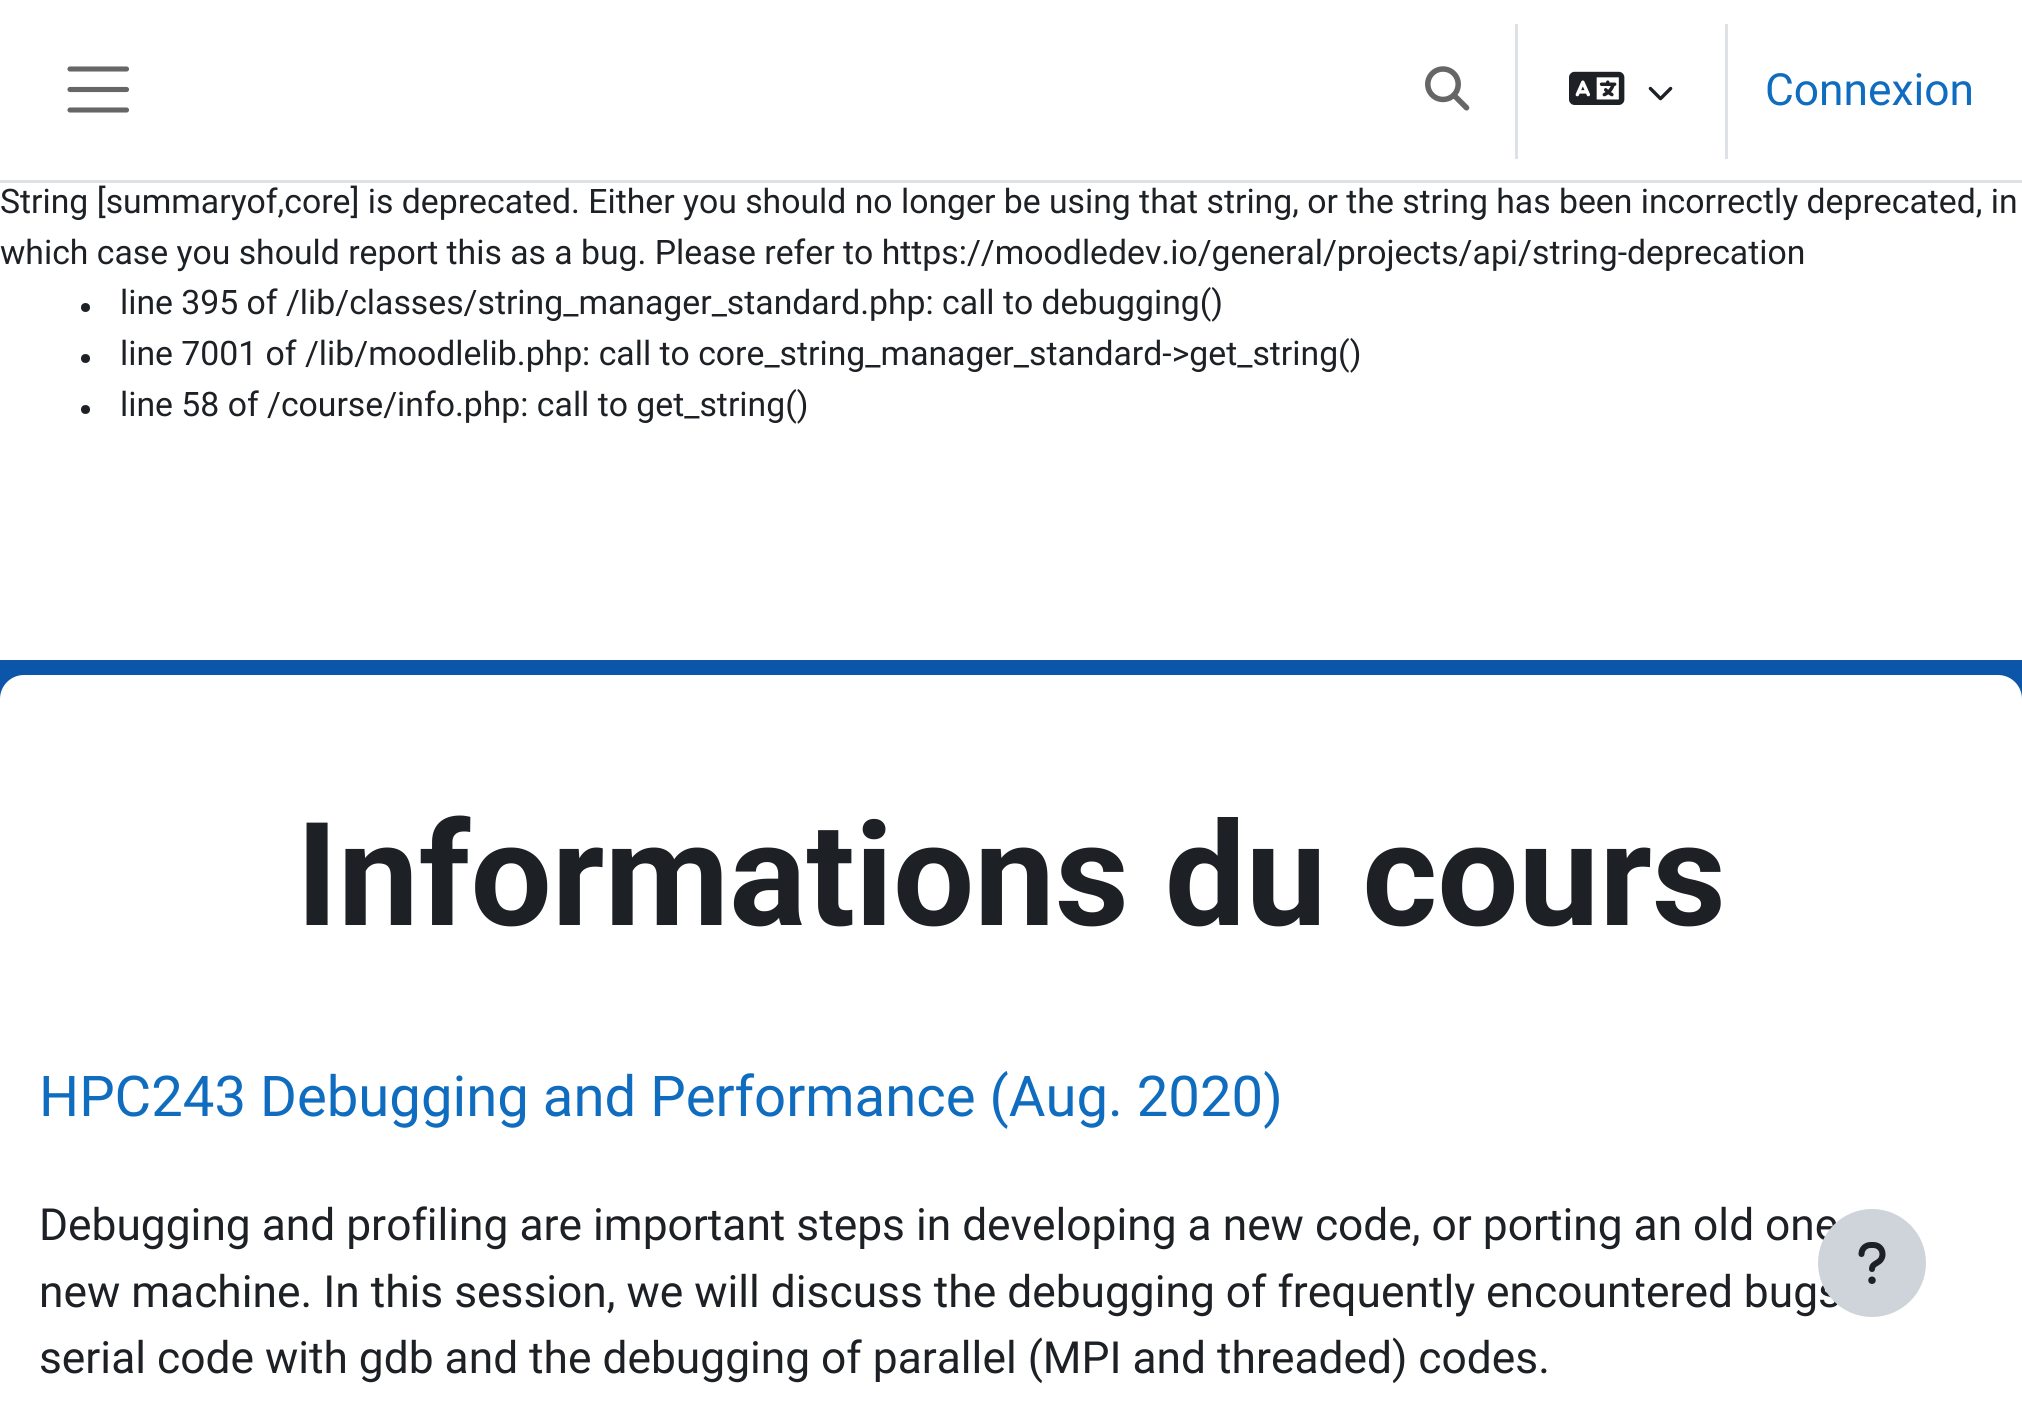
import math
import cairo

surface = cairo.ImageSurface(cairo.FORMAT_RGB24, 2022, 1411)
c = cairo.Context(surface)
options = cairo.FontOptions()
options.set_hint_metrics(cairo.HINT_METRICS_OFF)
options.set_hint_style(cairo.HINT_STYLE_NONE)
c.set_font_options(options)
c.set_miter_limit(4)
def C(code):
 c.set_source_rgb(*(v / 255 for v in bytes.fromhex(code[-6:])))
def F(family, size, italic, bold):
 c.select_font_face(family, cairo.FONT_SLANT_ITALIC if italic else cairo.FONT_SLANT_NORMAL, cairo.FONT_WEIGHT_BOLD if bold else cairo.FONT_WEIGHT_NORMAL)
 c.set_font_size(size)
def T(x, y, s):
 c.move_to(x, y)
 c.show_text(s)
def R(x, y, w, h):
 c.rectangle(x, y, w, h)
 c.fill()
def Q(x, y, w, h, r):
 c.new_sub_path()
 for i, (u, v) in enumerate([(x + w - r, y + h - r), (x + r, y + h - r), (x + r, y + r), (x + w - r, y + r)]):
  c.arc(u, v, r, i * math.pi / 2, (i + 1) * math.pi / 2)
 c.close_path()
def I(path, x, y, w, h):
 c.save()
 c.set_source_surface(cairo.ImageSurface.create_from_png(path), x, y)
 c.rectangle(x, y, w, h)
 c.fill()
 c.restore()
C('ffffff')
c.paint()
C('dee2e6')
R(0,180,2022,3)
c.new_path()
c.move_to(70,69)
c.line_to(126.5,69)
c.move_to(70,89.5)
c.line_to(126.5,89.5)
c.move_to(70,110)
c.line_to(126.5,110)
C('666666')
c.set_line_width(5.1)
c.set_line_cap(cairo.LINE_CAP_ROUND)
c.stroke()
I('1.png',1425,66,45,45)
C('dee2e6')
R(1515,24,3,135)
I('2.png',1569,71,56,34)
I('3.png',1648,86,25,15)
R(1725,24,3,135)
F('Roboto',44.3,0,0)
C('0f6cbf')
T(1765,105,'Connexion')
C('0b56a9')
R(0,660,2022,39)
C('ffffff')
Q(0,675,2022,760,24)
c.fill()
F('Roboto',144,0,1)
C('1d2125')
T(296,925,'Informations du cours')
F('Roboto',56.25,0,0)
C('0f6cbf')
T(39,1116,'HPC243 Debugging and Performance (Aug. 2020)')
F('Roboto',44.3,0,0)
C('1d2125')
T(39,1240,'Debugging and profiling are important steps in developing a new code, or porting an old one')
T(39,1307,'new machine. In this session, we will discuss the debugging of frequently encountered bugs')
T(39,1373,'serial code with gdb and the debugging of parallel (MPI and threaded) codes.')
C('ced4da')
c.new_path()
c.arc(1872,1263,54,0,2 * math.pi)
c.fill()
I('4.png',1858,1242,28,42)
F('Roboto',33.75,0,0)
C('1d2125')
T(0,213,'String [summaryof,core] is deprecated. Either you should no longer be using that string, or the string has been incorrectly deprecated, in')
T(0,264,'which case you should report this as a bug. Please refer to https://moodledev.io/general/projects/api/string-deprecation')
c.new_path()
c.arc(85.5,307.5,4.5,0,2 * math.pi)
c.fill()
T(120,314,'line 395 of /lib/classes/string_manager_standard.php: call to debugging()')
c.new_path()
c.arc(85.5,358.5,4.5,0,2 * math.pi)
c.fill()
T(120,365,'line 7001 of /lib/moodlelib.php: call to core_string_manager_standard->get_string()')
c.new_path()
c.arc(85.5,409.5,4.5,0,2 * math.pi)
c.fill()
T(120,416,'line 58 of /course/info.php: call to get_string()')
surface.write_to_png('o.png')
